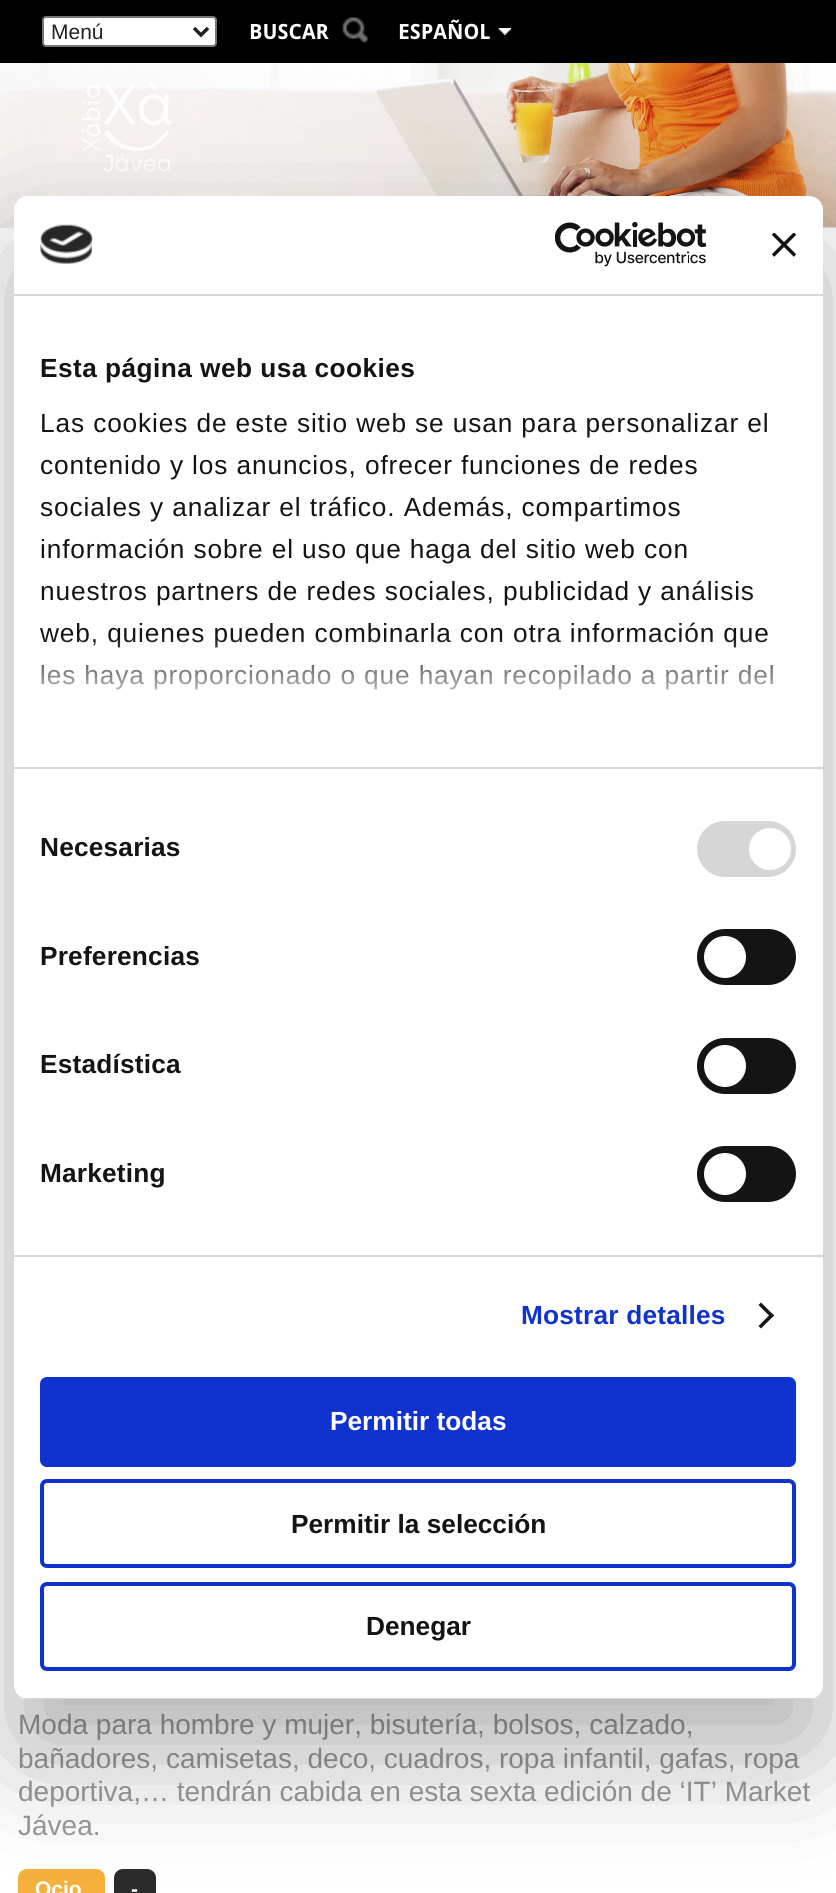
import math
import cairo

surface = cairo.ImageSurface(cairo.FORMAT_RGB24, 836, 1893)
c = cairo.Context(surface)
options = cairo.FontOptions()
options.set_hint_metrics(cairo.HINT_METRICS_OFF)
options.set_hint_style(cairo.HINT_STYLE_NONE)
c.set_font_options(options)
c.set_miter_limit(4)
def C(code):
 c.set_source_rgb(*(v / 255 for v in bytes.fromhex(code[-6:])))
def F(family, size, italic, bold):
 c.select_font_face(family, cairo.FONT_SLANT_ITALIC if italic else cairo.FONT_SLANT_NORMAL, cairo.FONT_WEIGHT_BOLD if bold else cairo.FONT_WEIGHT_NORMAL)
 c.set_font_size(size)
def T(x, y, s):
 c.move_to(x, y)
 c.show_text(s)
def L(x, y, s, letter, word):
 c.move_to(x, y)
 for ch in s:
  c.show_text(ch)
  c.rel_move_to(letter + word * (ch == ' '), 0)
def R(x, y, w, h):
 c.rectangle(x, y, w, h)
 c.fill()
def Q(x, y, w, h, r):
 c.new_sub_path()
 for i, (u, v) in enumerate([(x + w - r, y + h - r), (x + r, y + h - r), (x + r, y + r), (x + w - r, y + r)]):
  c.arc(u, v, r, i * math.pi / 2, (i + 1) * math.pi / 2)
 c.close_path()
def S(x, y, w, h, r, blur, alpha):
 c.push_group_with_content(cairo.CONTENT_ALPHA)
 c.set_operator(cairo.OPERATOR_SOURCE)
 for i in range(15, -16, -2):
  e = blur * i / 6
  if min(w, h) + 2 * e > 0:
   c.set_source_rgba(0, 0, 0, alpha * math.erfc((i - 1) / 8.5) / 2)
   Q(x - e, y - e, w + 2 * e, h + 2 * e, max(0, min(r + e + blur * .6, min(w, h) / 2 + e)))
   c.fill()
 c.mask(c.pop_group())
def I(path, x, y, w, h):
 c.save()
 c.set_source_surface(cairo.ImageSurface.create_from_png(path), x, y)
 c.rectangle(x, y, w, h)
 c.fill()
 c.restore()
C('ffffff')
c.paint()
C('eeeeee')
R(0,227,836,1)
C('000000')
R(0,0,836,63)
C('ffffff')
Q(43,17,173,29,3)
c.fill_preserve()
C('767676')
c.stroke()
c.new_path()
c.move_to(194,28)
c.line_to(201,35)
c.line_to(208,28)
C('222222')
c.set_line_width(3.5)
c.stroke()
F('Liberation Sans',21,0,0)
T(51,39,'Menú')
F('Droid Sans',21,0,1)
C('ffffff')
T(249,39,'BUSCAR')
I('1.png',342,17,26,26)
I('2.png',498,28,13,7)
T(398,39,'ESPAÑOL')
I('3.png',0,63,836,165)
I('4.png',81,82,91,90)
F('Liberation Sans',28,0,0)
C('999999')
T(18,1734,'Moda para hombre y mujer, bisutería, bolsos, calzado,')
T(18,1768,'bañadores, camisetas, deco, cuadros, ropa infantil, gafas, ropa')
T(18,1801,'deportiva,… tendrán cabida en esta sexta edición de ‘IT’ Market')
T(18,1835,'Jávea.')
C('f5b13b')
Q(18,1869,87,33,9)
c.fill()
F('Liberation Sans',21,0,1)
C('ffffff')
T(35,1896,'Ocio')
C('2b2b2b')
Q(114,1869,42,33,9)
c.fill()
C('ffffff')
T(131,1896,'-')
C('000000')
S(14,252,809,1503,14,59.5,.3)
C('ffffff')
Q(14,196,809,1503,14)
c.fill()
C('d6d6d6')
R(14,294,809,2)
I('5.png',40,224,53,40)
I('6.png',555,222,152,45)
I('7.png',772,233,24,24)
R(14,767,809,2)
F('Liberation Sans',26.25,0,1)
C('141414')
L(40,377,'Esta página web usa cookies',.45,0)
F('Liberation Sans',26.25,0,0)
L(40,432,'Las cookies de este sitio web se usan para personalizar el',.88,0)
L(40,474,'contenido y los anuncios, ofrecer funciones de redes',.88,0)
L(40,516,'sociales y analizar el tráfico. Además, compartimos',.88,0)
L(40,558,'información sobre el uso que haga del sitio web con',.88,0)
L(40,600,'nuestros partners de redes sociales, publicidad y análisis',.88,0)
L(40,642,'web, quienes pueden combinarla con otra información que',.88,0)
L(40,684,'les haya proporcionado o que hayan recopilado a partir del',.88,0)
gradient = cairo.LinearGradient(407,766,407,635)
gradient.add_color_stop_rgba(0,1,1,1,1)
gradient.add_color_stop_rgba(.5,1,1,1,.8)
gradient.add_color_stop_rgba(1,1,1,1,0)
c.set_source(gradient)
R(42,637,731,53)
C('d6d6d6')
R(14,1255,809,2)
F('Liberation Sans',26.25,0,1)
C('141414')
L(40,856,'Necesarias',.2,0)
C('d6d6d6')
Q(697,821,99,56,28)
c.fill()
C('ffffff')
c.arc(770,849,21,0,2 * math.pi)
c.fill()
C('141414')
L(40,965,'Preferencias',.2,0)
Q(697,929,99,56,28)
c.fill()
C('ffffff')
c.arc(725,957,21,0,2 * math.pi)
c.fill()
C('141414')
L(40,1073,'Estadística',.2,0)
Q(697,1038,99,56,28)
c.fill()
C('ffffff')
c.arc(725,1066,21,0,2 * math.pi)
c.fill()
C('141414')
L(40,1182,'Marketing',.2,0)
Q(697,1146,99,56,28)
c.fill()
C('ffffff')
c.arc(725,1174,21,0,2 * math.pi)
c.fill()
C('1032cf')
L(521,1324,'Mostrar detalles',.2,0)
C('141414')
c.new_path()
c.move_to(761,1302.5)
c.line_to(774,1315.5)
c.line_to(771.5,1318)
c.line_to(758.5,1305)
c.close_path()
c.fill()
c.new_path()
c.move_to(771.5,1313)
c.line_to(774,1315.5)
c.line_to(761,1328.5)
c.line_to(758.5,1326)
c.close_path()
c.fill()
c.save()
Q(14,196,809,1503,14)
c.clip()
C('d6d6d6')
R(23,1698,791,1)
c.restore()
C('1032cf')
Q(42,1379,752,86,5)
c.fill_preserve()
c.set_line_width(4)
c.stroke()
C('ffffff')
T(330,1430,'Permitir todas')
Q(42,1481,752,85,5)
C('1032cf')
c.stroke()
C('141414')
T(291,1533,'Permitir la selección')
Q(42,1584,752,85,5)
C('1032cf')
c.stroke()
C('141414')
T(366,1635,'Denegar')
surface.write_to_png('o.png')
